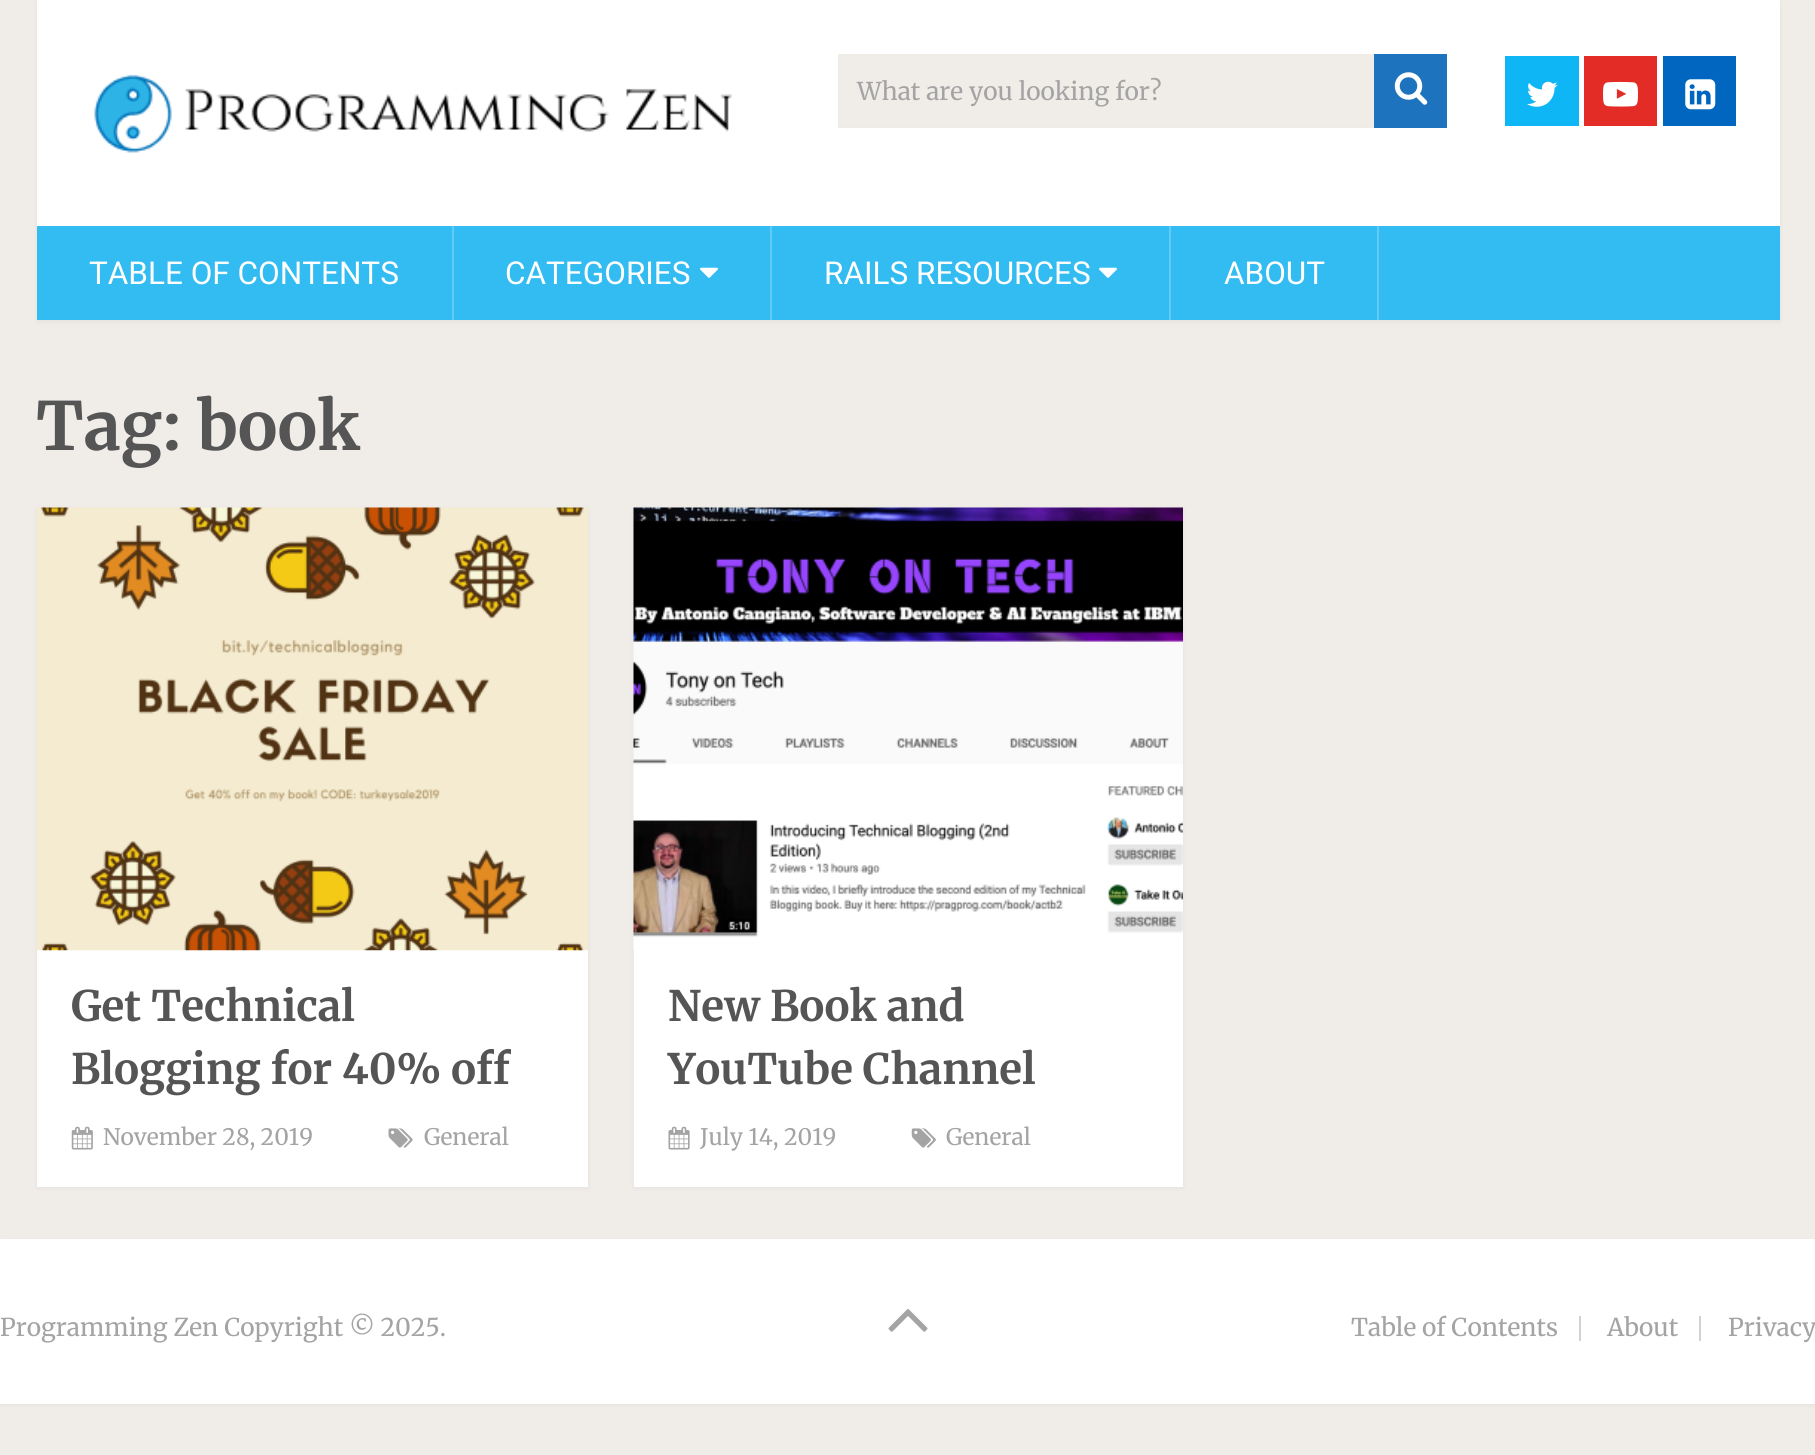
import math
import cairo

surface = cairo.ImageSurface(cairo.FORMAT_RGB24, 1815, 1455)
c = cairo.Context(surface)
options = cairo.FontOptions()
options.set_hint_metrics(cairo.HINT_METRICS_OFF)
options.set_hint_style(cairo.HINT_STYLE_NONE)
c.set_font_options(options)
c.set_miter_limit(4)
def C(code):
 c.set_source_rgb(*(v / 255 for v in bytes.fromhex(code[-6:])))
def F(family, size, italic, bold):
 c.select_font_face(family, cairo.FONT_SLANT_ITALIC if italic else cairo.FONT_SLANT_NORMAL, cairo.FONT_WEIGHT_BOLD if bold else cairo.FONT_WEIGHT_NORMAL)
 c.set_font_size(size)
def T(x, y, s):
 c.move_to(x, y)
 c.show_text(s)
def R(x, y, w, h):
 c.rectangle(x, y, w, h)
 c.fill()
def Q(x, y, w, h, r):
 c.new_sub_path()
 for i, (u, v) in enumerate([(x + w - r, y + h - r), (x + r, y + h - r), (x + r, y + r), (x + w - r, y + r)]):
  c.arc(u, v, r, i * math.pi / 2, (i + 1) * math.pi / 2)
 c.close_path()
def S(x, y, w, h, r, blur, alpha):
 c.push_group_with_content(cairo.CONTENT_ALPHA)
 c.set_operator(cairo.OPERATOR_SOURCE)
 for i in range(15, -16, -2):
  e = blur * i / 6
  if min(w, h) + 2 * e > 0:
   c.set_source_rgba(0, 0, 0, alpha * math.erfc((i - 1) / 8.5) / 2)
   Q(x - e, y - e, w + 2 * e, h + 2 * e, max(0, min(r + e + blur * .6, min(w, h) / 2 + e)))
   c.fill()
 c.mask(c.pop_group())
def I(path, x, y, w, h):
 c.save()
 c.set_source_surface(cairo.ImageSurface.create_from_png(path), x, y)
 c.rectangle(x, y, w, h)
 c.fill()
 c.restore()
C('f0ede9')
c.paint()
C('000000')
S(37,2,1743,320,0,2,.05)
C('ffffff')
R(37,0,1743,226)
I('1.png',94,74,638,79)
C('f0ede9')
R(840,56,534,70)
c.rectangle(839,55,607,72)
C('efebe7')
c.stroke()
F('Merriweather',24.5,0,0)
C('a4a4a4')
T(857,100,'What are you looking for?')
C('1e73be')
R(1374,54,73,74)
I('2.png',1394,72,34,33)
C('0eb6f6')
R(1505,56,74,70)
I('3.png',1527,81,31,26)
C('e32c26')
R(1584,56,73,70)
I('4.png',1603,81,35,26)
C('0066bf')
R(1663,56,73,70)
I('5.png',1685,79,31,31)
C('33bcf2')
R(37,226,1743,94)
C('60cbf5')
R(452,226,2,94)
F('Roboto',31.5,0,0)
C('ffffff')
T(89,284,'TABLE OF CONTENTS')
C('60cbf5')
R(770,226,2,94)
C('ffffff')
T(505,284,'CATEGORIES')
I('6.png',700,267,18,11)
C('60cbf5')
R(1169,226,2,94)
C('ffffff')
T(824,284,'RAILS RESOURCES')
I('6.png',1099,267,18,11)
C('60cbf5')
R(1377,226,2,94)
C('ffffff')
T(1224,284,'ABOUT')
F('Merriweather',66.5,0,1)
C('555555')
T(36,450,'Tag: book')
C('000000')
S(37,509,551,679,0,2,.05)
C('ffffff')
R(37,950,551,237)
I('7.png',36,507,552,444)
F('Merriweather',42,0,1)
C('555555')
T(71,1021,'Get Technical')
T(71,1084,'Blogging for 40% off')
I('8.png',71,1126,22,24)
F('Merriweather',22.75,0,0)
C('a4a4a4')
T(103,1145,'November 28, 2019')
I('9.png',388,1128,25,20)
T(424,1145,'General')
C('000000')
S(634,509,549,679,0,2,.05)
C('ffffff')
R(634,950,549,237)
I('10.png',633,507,550,443)
F('Merriweather',42,0,1)
C('555555')
T(668,1021,'New Book and')
T(668,1084,'YouTube Channel')
I('11.png',668,1126,22,24)
F('Merriweather',22.75,0,0)
C('a4a4a4')
T(700,1145,'July 14, 2019')
I('12.png',911,1128,25,20)
T(946,1145,'General')
C('000000')
S(0,1241,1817,164,0,2,.05)
C('ffffff')
R(0,1239,1815,165)
F('Merriweather',24.5,0,0)
C('a4a4a4')
T(0,1336,'Programming Zen Copyright © 2025.')
I('13.png',888,1309,40,23)
C('d2d2d2')
R(1579,1316,2,25)
C('a4a4a4')
T(1351,1336,'Table of Contents')
C('d2d2d2')
R(1699,1316,2,25)
C('a4a4a4')
T(1607,1336,'About')
T(1728,1336,'Privacy')
surface.write_to_png('o.png')
